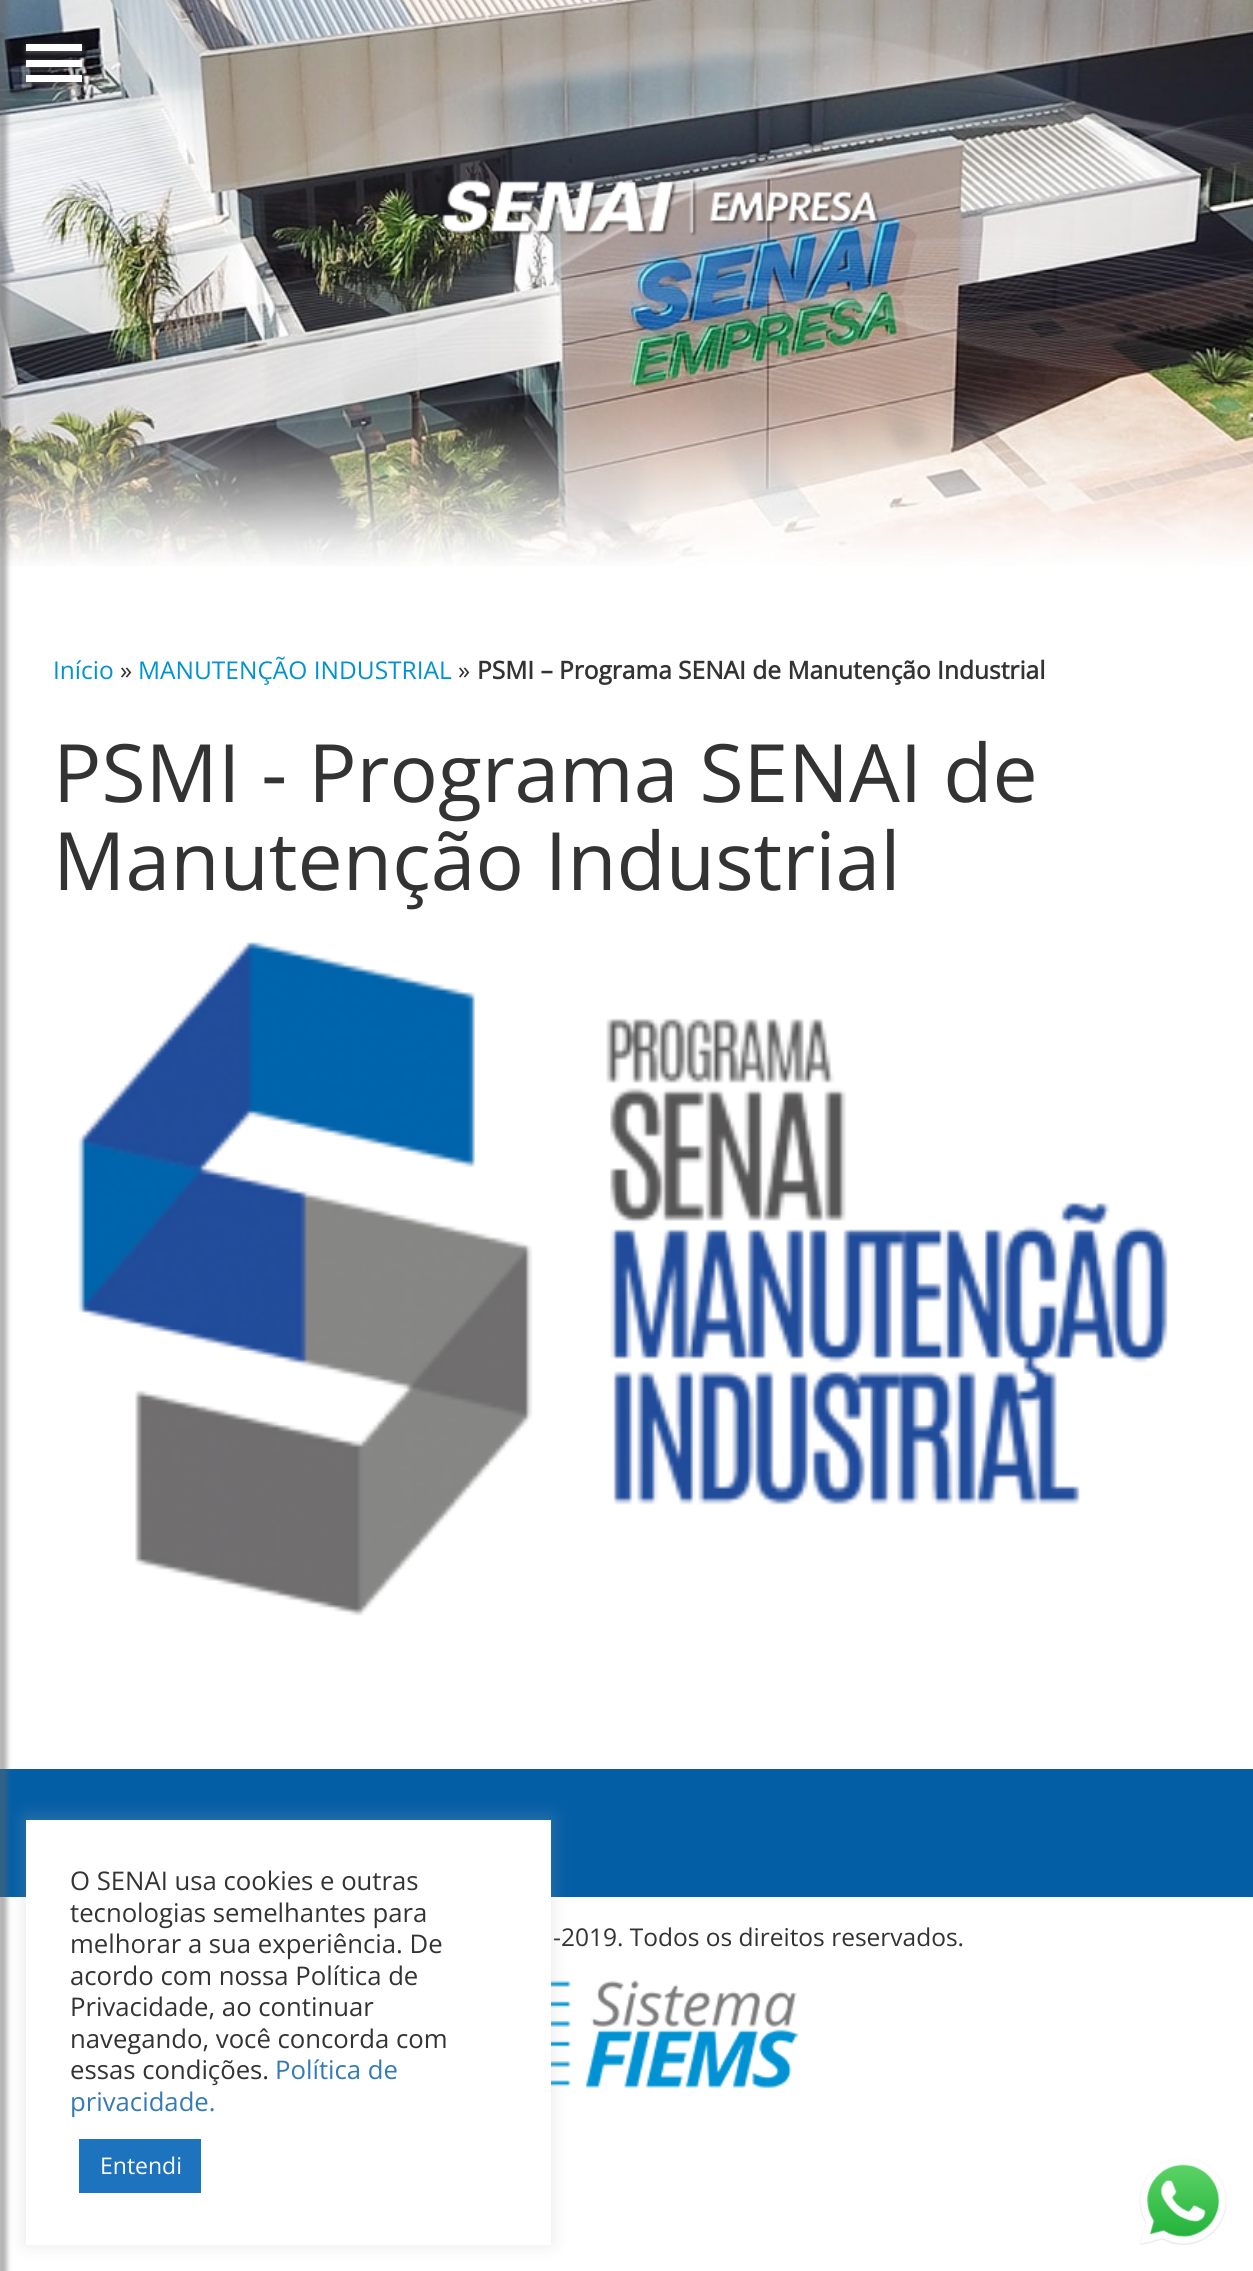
import math
import cairo

surface = cairo.ImageSurface(cairo.FORMAT_RGB24, 1253, 2271)
c = cairo.Context(surface)
options = cairo.FontOptions()
options.set_hint_metrics(cairo.HINT_METRICS_OFF)
options.set_hint_style(cairo.HINT_STYLE_NONE)
c.set_font_options(options)
c.set_miter_limit(4)
def C(code):
 c.set_source_rgb(*(v / 255 for v in bytes.fromhex(code[-6:])))
def F(family, size, italic, bold):
 c.select_font_face(family, cairo.FONT_SLANT_ITALIC if italic else cairo.FONT_SLANT_NORMAL, cairo.FONT_WEIGHT_BOLD if bold else cairo.FONT_WEIGHT_NORMAL)
 c.set_font_size(size)
def T(x, y, s):
 c.move_to(x, y)
 c.show_text(s)
def R(x, y, w, h):
 c.rectangle(x, y, w, h)
 c.fill()
def Q(x, y, w, h, r):
 c.new_sub_path()
 for i, (u, v) in enumerate([(x + w - r, y + h - r), (x + r, y + h - r), (x + r, y + r), (x + w - r, y + r)]):
  c.arc(u, v, r, i * math.pi / 2, (i + 1) * math.pi / 2)
 c.close_path()
def S(x, y, w, h, r, blur, alpha):
 c.push_group_with_content(cairo.CONTENT_ALPHA)
 c.set_operator(cairo.OPERATOR_SOURCE)
 for i in range(15, -16, -2):
  e = blur * i / 6
  if min(w, h) + 2 * e > 0:
   c.set_source_rgba(0, 0, 0, alpha * math.erfc((i - 1) / 8.5) / 2)
   Q(x - e, y - e, w + 2 * e, h + 2 * e, max(0, min(r + e + blur * .6, min(w, h) / 2 + e)))
   c.fill()
 c.mask(c.pop_group())
def I(path, x, y, w, h):
 c.save()
 c.set_source_surface(cairo.ImageSurface.create_from_png(path), x, y)
 c.rectangle(x, y, w, h)
 c.fill()
 c.restore()
C('ffffff')
c.paint()
I('1.png',0,0,1253,566)
C('045ea5')
R(0,1769,1253,128)
C('646464')
S(-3,-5,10,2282,0,2.5,.5)
I('2.png',442,179,439,58)
S(26,46,56,7,0,2.5,.8)
C('ffffff')
R(26,44,56,7)
C('646464')
S(26,61,56,7,0,2.5,.8)
C('ffffff')
R(26,60,56,7)
C('646464')
S(26,77,56,7,0,2.5,.8)
C('ffffff')
R(26,75,56,7)
F('Open Sans',24.5,0,0)
C('0092d2')
T(53,679,'Início')
C('333333')
T(120,679,'»')
C('0092d2')
T(138,679,'MANUTENÇÃO INDUSTRIAL')
C('333333')
T(458,679,'»')
F('Open Sans',24.5,0,1)
T(477,679,'PSMI – Programa SENAI de Manutenção Industrial')
F('Open Sans',80.5,0,0)
T(53,802,'PSMI - Programa SENAI de')
T(53,890,'Manutenção Industrial')
I('3.png',78,942,1090,674)
F('Open Sans',24.5,0,0)
T(553,1946,'-2019. Todos os direitos reservados.')
I('4.png',551,1980,248,109)
C('acabab')
S(26,1818,525,426,0,9,.3)
C('ffffff')
R(26,1820,525,425)
F('Open Sans',25.7,0,0)
C('333333')
T(70,1890,'O SENAI usa cookies e outras')
T(70,1922,'tecnologias semelhantes para')
T(70,1953,'melhorar a sua experiência. De')
T(70,1985,'acordo com nossa Política de')
T(70,2016,'Privacidade, ao continuar')
T(70,2048,'navegando, você concorda com')
T(70,2079,'essas condições.')
C('337ab7')
T(275,2079,'Política de')
T(70,2111,'privacidade.')
C('1e73be')
R(79,2139,122,54)
F('Open Sans',23,0,0)
C('ffffff')
T(100,2174,'Entendi')
I('5.png',1139,2158,88,87)
surface.write_to_png('o.png')
